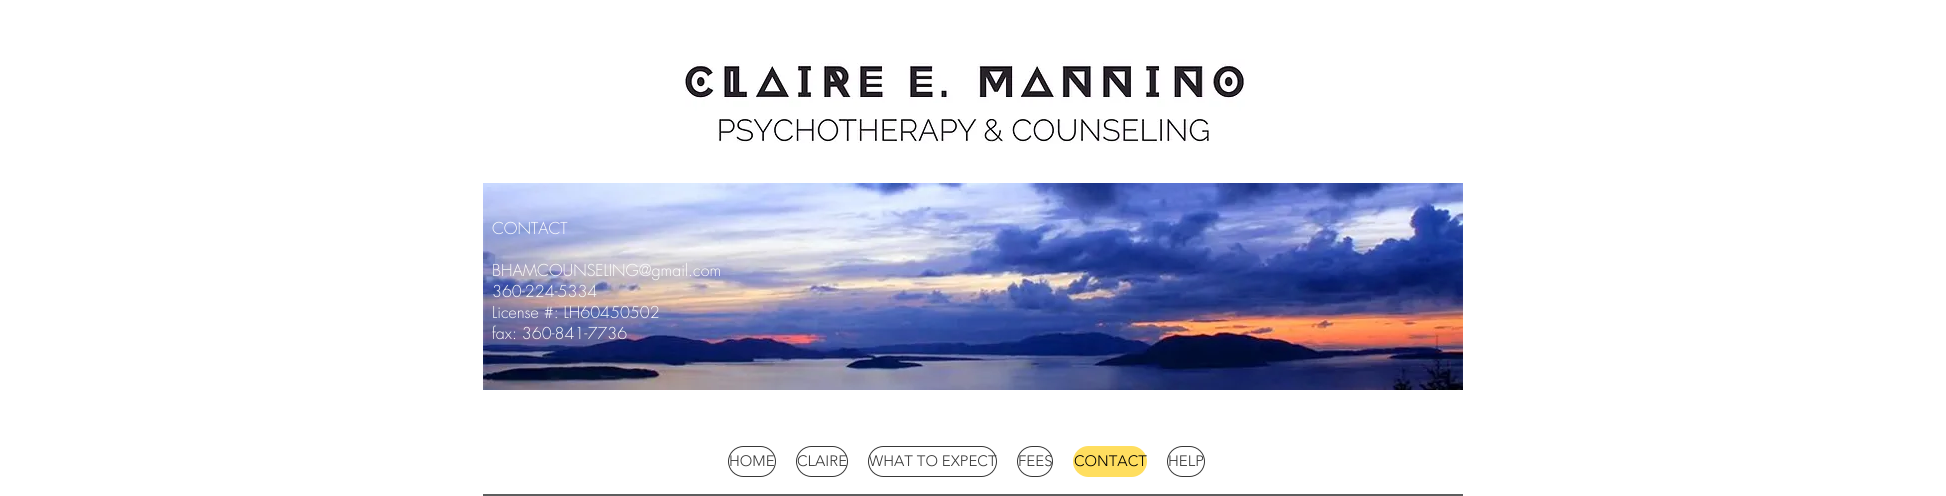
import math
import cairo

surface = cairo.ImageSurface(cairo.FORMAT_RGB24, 1946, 496)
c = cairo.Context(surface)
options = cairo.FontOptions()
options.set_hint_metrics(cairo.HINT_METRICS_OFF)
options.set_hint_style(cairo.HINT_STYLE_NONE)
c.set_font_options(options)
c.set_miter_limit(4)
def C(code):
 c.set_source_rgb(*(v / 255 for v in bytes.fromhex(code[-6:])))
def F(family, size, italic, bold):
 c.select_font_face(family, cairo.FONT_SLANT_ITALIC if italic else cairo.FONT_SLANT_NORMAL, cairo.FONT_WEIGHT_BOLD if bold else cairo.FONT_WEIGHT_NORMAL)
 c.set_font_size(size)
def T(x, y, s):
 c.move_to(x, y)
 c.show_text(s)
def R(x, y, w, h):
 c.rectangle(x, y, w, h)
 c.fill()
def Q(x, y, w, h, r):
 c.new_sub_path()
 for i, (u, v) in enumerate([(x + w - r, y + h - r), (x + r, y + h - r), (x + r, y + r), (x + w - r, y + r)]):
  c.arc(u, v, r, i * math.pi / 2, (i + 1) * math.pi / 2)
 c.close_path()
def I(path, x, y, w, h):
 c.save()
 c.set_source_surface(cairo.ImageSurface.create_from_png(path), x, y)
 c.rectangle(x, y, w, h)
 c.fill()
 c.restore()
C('ffffff')
c.paint()
I('1.png',685,41,560,103)
I('2.png',483,183,980,207)
F('futura Light',16,0,0)
C('ffffff')
T(492,234,'CONTACT')
T(492,276,'BHAMCOUNSELING@gmail.com')
T(492,297,'360-224-5334')
T(492,318,'License #: LH60450502')
T(492,339,'fax: 360-841-7736')
Q(728.5,446.5,47,30,15)
C('383838')
c.set_line_width(1)
c.stroke()
F('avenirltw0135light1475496 Light',15,0,0)
T(729,466,'HOME')
Q(796.5,446.5,51,30,15)
c.stroke()
T(797,466,'CLAIRE')
Q(868.5,446.5,128,30,15)
c.stroke()
T(869,466,'WHAT TO EXPECT')
Q(1017.5,446.5,35,30,15)
c.stroke()
T(1018,466,'FEES')
C('ffde5f')
Q(1073,446,74,31,15.5)
c.fill()
C('000000')
T(1074,466,'CONTACT')
Q(1167.5,446.5,37,30,15)
C('383838')
c.stroke()
T(1168,466,'HELP')
C('5c5e5e')
R(483,494,980,2)
surface.write_to_png('o.png')
